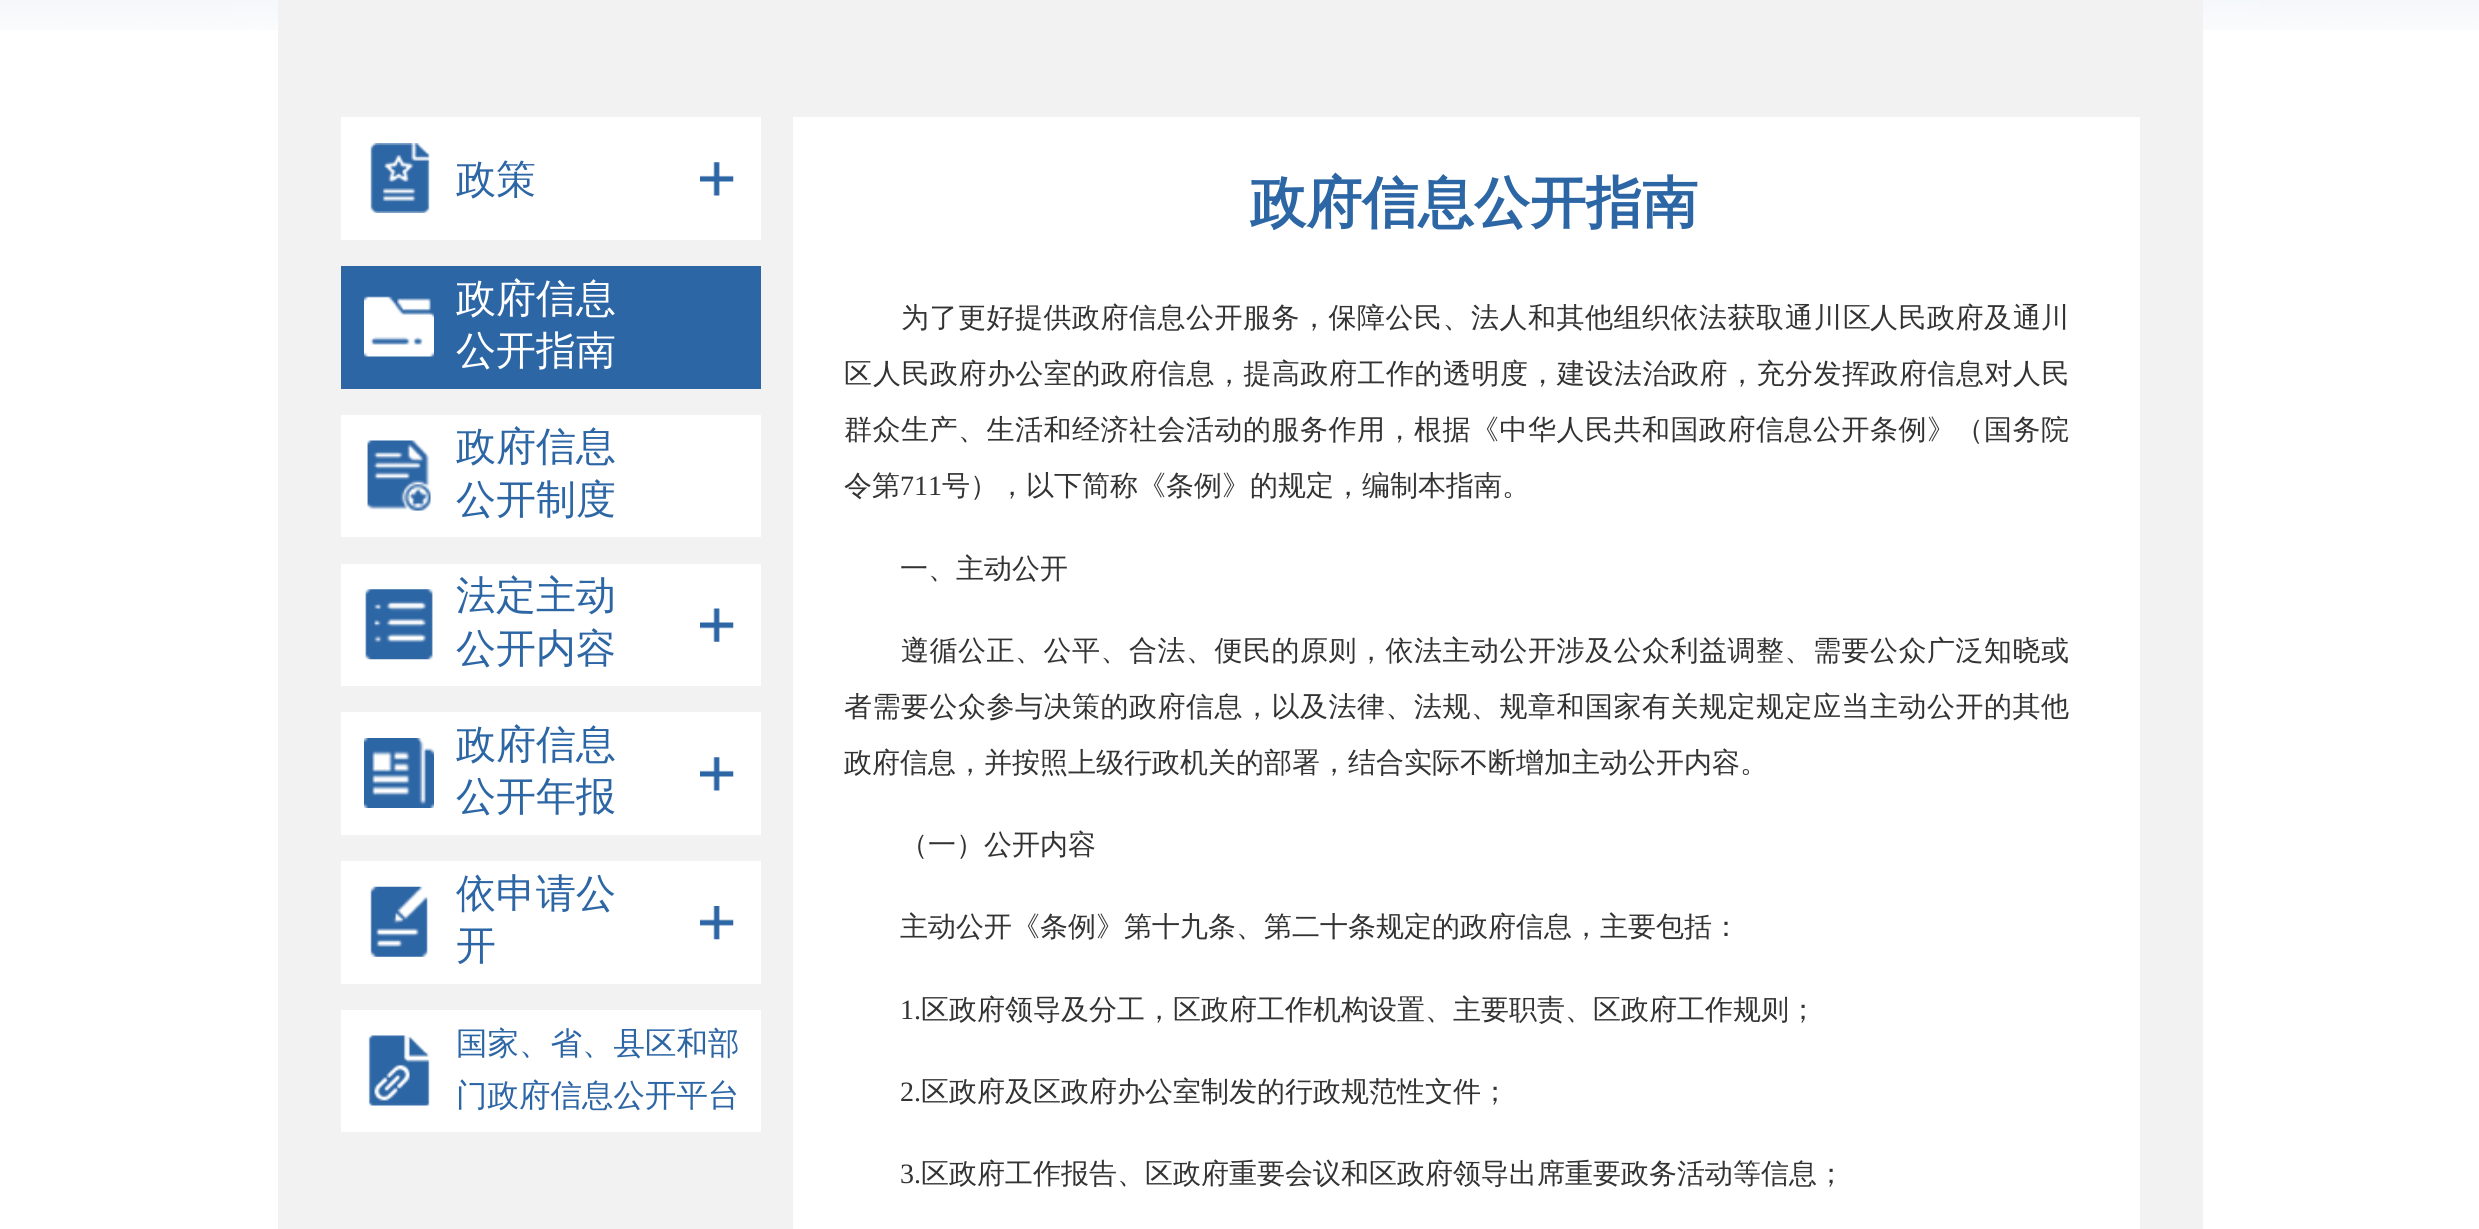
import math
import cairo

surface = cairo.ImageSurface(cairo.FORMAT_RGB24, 2479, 1229)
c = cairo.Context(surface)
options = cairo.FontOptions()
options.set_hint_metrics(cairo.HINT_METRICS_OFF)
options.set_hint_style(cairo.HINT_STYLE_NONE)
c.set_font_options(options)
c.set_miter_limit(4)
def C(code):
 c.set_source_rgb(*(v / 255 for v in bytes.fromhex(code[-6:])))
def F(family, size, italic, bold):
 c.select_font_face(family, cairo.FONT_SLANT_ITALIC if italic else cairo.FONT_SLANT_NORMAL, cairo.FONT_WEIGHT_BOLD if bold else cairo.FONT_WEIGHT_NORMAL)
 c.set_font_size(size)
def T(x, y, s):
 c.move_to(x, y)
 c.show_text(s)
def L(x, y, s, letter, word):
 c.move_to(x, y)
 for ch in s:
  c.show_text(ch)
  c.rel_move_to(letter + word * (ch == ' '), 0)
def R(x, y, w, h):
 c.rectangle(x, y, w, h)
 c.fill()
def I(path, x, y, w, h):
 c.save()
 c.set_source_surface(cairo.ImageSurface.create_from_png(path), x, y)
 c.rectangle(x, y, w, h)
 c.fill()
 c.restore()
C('ffffff')
c.paint()
I('1.png',0,0,2479,30)
C('f2f2f2')
R(278,0,1925,1229)
C('ffffff')
R(341,117,420,123)
I('2.png',370,143,60,70)
F('WenQuanYi Zen Hei Medium',40,0,0)
C('2d66a5')
T(456,193,'政策')
I('3.png',700,162,34,34)
R(341,266,420,123)
I('4.png',364,296,70,61)
C('ffffff')
T(456,312,'政府信息')
T(456,364,'公开指南')
R(341,415,420,122)
I('5.png',367,440,64,71)
C('2d66a5')
T(456,460,'政府信息')
T(456,513,'公开制度')
C('ffffff')
R(341,564,420,122)
I('6.png',365,589,68,71)
C('2d66a5')
T(456,609,'法定主动')
T(456,662,'公开内容')
I('7.png',700,608,34,34)
C('ffffff')
R(341,712,420,123)
I('8.png',364,738,70,70)
C('2d66a5')
T(456,758,'政府信息')
T(456,810,'公开年报')
I('3.png',700,757,34,34)
C('ffffff')
R(341,861,420,123)
I('9.png',370,886,58,71)
C('2d66a5')
T(456,907,'依申请公')
T(456,959,'开')
I('10.png',700,906,34,34)
C('ffffff')
R(341,1010,420,122)
I('11.png',368,1035,62,71)
F('WenQuanYi Zen Hei Medium',31.5,0,0)
C('2d66a5')
T(456,1054,'国家、省、县区和部')
T(456,1106,'门政府信息公开平台')
C('ffffff')
R(793,117,1347,1112)
F('WenQuanYi Zen Hei',56,0,1)
C('2d66a5')
T(1250,222,'政府信息公开指南')
F('WenQuanYi Zen Hei Medium',28,0,0)
C('333333')
L(901,327,'为了更好提供政府信息公开服务，保障公民、法人和其他组织依法获取',.5,0)
L(1785,327,'通川区',1,0)
L(1870,327,'人民政府及',.5,0)
T(2013,327,'通川')
T(844,383,'区')
L(873,383,'人民政府办公室的政府信息，提高政府工作的透明度，建设法治政府，充分发挥政府信息对人民',.5,0)
L(844,439,'群众生产、生活和经济社会活动的服务作用，根据《中华人民共和国政府信息公开条例》（国务院',.5,0)
T(844,495,'令第')
F('Liberation Serif',28,0,0)
T(900,495,'711')
F('WenQuanYi Zen Hei Medium',28,0,0)
T(942,495,'号），以下简称《条例》的规定，编制本指南。')
T(900,578,'一、主动公开')
L(901,660,'遵循公正、公平、合法、便民的原则，依法主动公开涉及公众利益调整、需要公众广泛知晓或',.5,0)
L(844,716,'者需要公众参与决策的政府信息，以及法律、法规、规章和国家有关规定规定应当主动公开的其他',.5,0)
T(844,772,'政府信息，并按照上级行政机关的部署，结合实际不断增加主动公开内容。')
T(900,854,'（一）公开内容')
T(900,936,'主动公开《条例》第十九条、第二十条规定的政府信息，主要包括：')
F('Liberation Serif',28,0,0)
T(900,1019,'1.')
F('WenQuanYi Zen Hei Medium',28,0,0)
T(921,1019,'区政府领导及分工，区政府工作机构设置、主要职责、区政府工作规则；')
F('Liberation Serif',28,0,0)
T(900,1101,'2.')
F('WenQuanYi Zen Hei Medium',28,0,0)
T(921,1101,'区政府及区政府办公室制发的行政规范性文件；')
F('Liberation Serif',28,0,0)
T(900,1183,'3.')
F('WenQuanYi Zen Hei Medium',28,0,0)
T(921,1183,'区政府工作报告、区政府重要会议和区政府领导出席重要政务活动等信息；')
surface.write_to_png('o.png')
